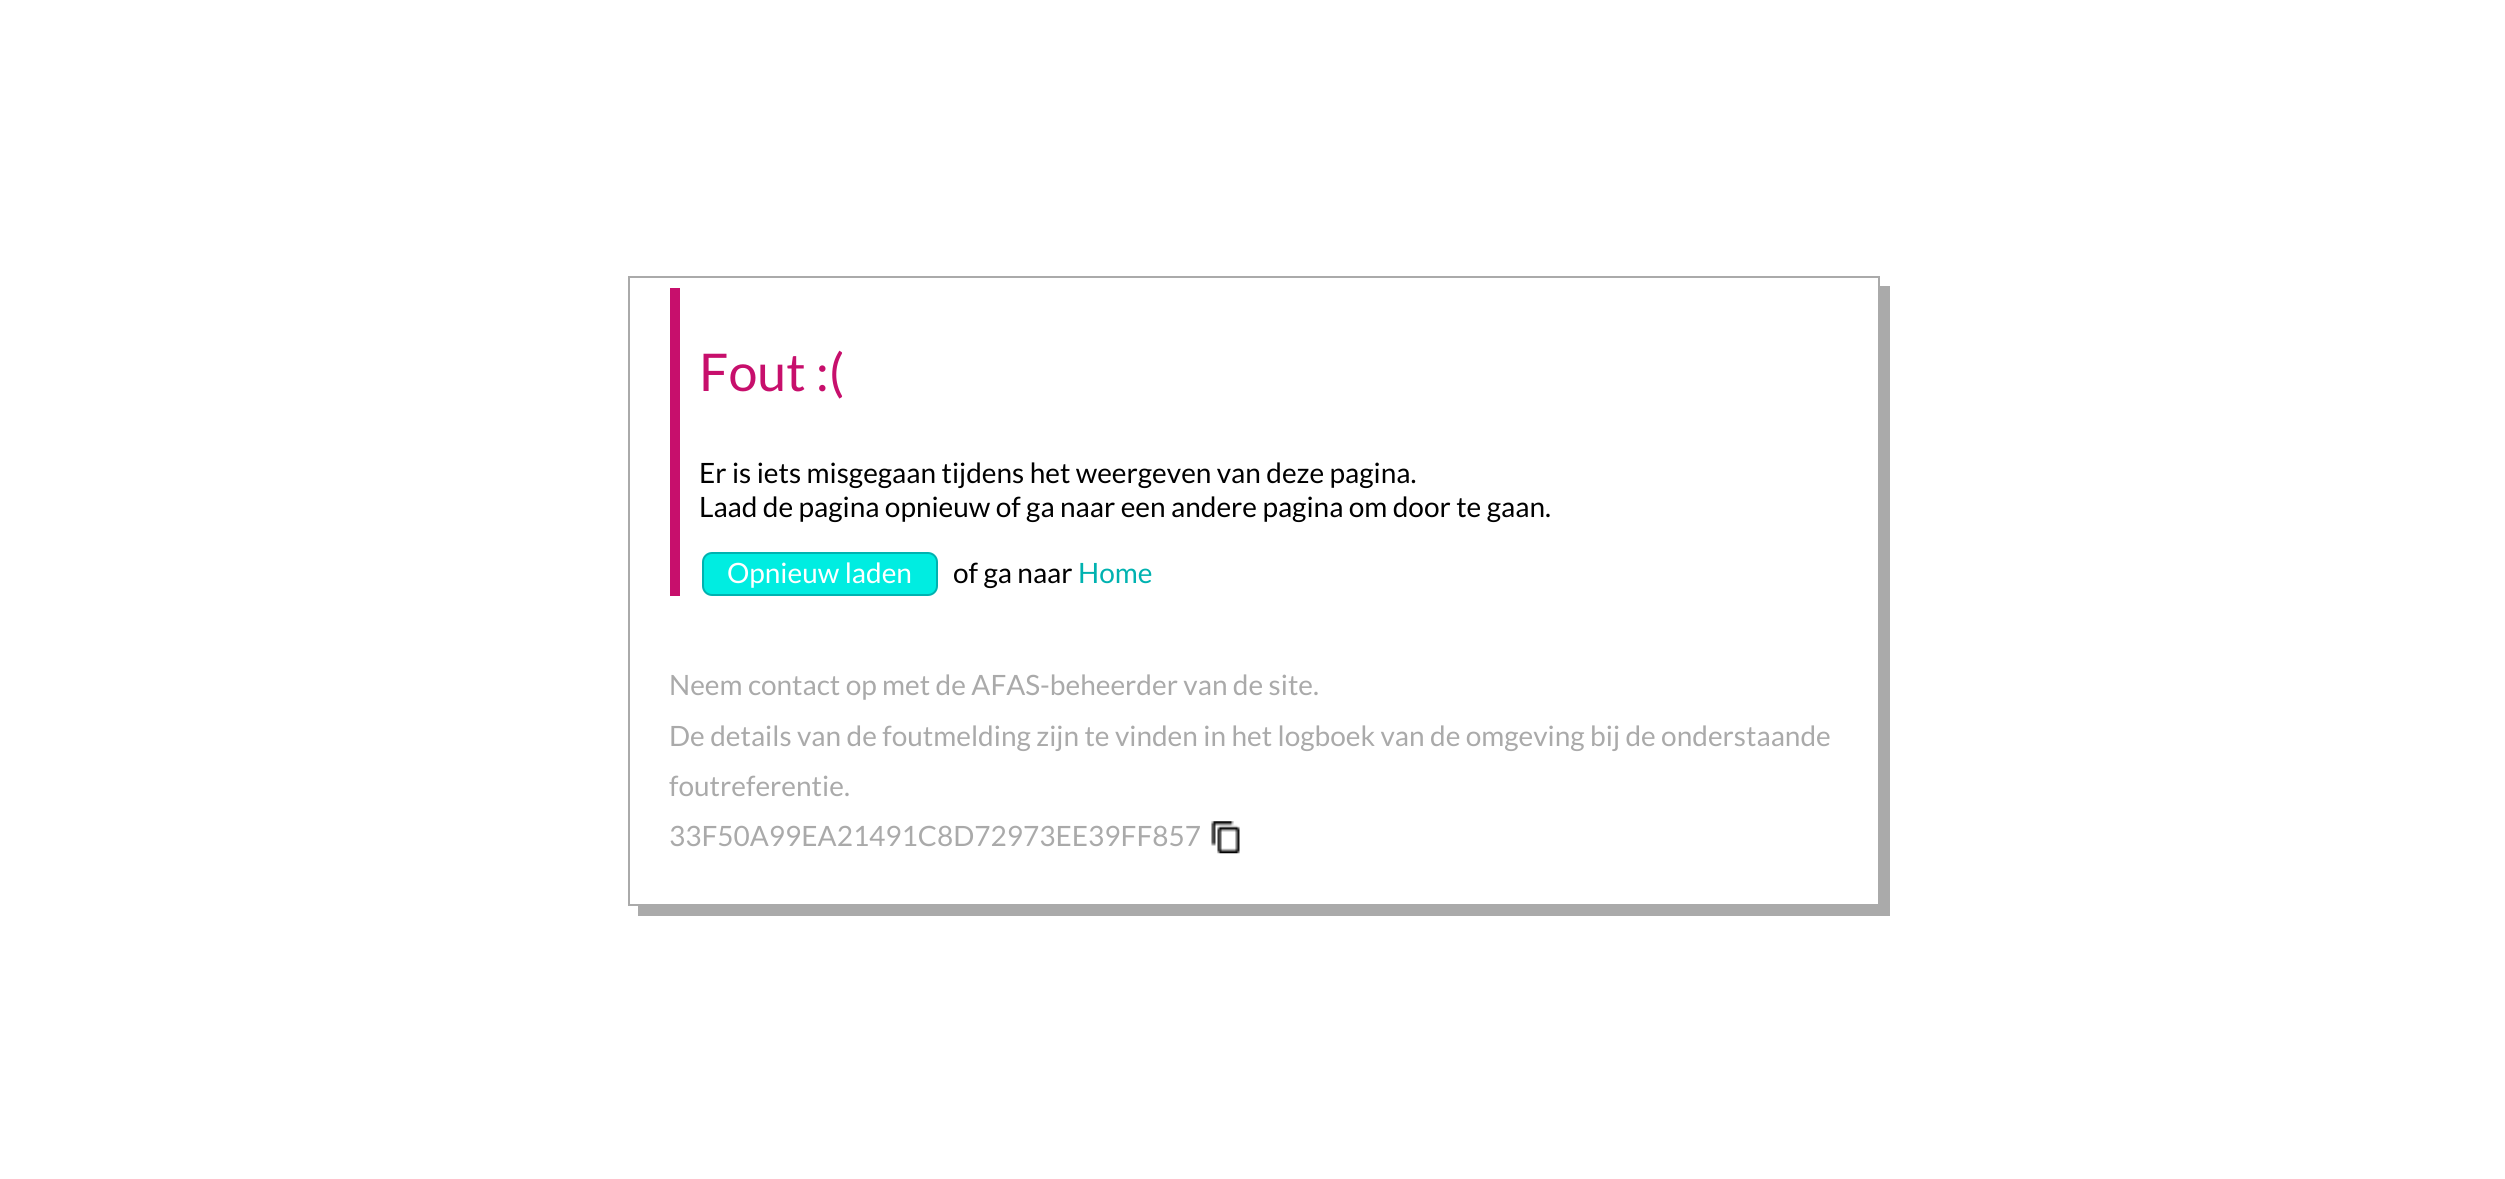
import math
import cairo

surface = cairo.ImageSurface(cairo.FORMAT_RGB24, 2505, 1179)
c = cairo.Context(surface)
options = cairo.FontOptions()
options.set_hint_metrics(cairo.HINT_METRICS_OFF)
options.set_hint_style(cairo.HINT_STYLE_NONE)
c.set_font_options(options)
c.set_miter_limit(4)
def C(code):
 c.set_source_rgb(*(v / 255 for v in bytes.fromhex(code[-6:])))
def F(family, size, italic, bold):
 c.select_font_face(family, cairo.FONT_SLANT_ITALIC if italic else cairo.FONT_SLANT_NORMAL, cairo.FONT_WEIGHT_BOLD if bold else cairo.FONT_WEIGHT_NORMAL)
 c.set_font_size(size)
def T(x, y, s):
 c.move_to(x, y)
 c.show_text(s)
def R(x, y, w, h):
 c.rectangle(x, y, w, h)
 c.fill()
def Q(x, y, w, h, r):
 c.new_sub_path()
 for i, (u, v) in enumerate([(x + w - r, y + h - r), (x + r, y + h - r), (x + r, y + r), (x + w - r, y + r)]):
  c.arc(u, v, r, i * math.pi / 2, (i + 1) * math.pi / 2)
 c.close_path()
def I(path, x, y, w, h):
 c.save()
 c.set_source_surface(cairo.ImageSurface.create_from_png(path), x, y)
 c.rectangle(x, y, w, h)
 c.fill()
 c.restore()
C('ffffff')
c.paint()
C('aaaaaa')
c.new_path()
c.move_to(638,905)
c.line_to(638,916)
c.line_to(1890,916)
c.line_to(1890,286)
c.line_to(1880,286)
c.line_to(1880,905)
c.close_path()
c.fill()
c.rectangle(629,277,1250,628)
c.stroke()
C('c70f6c')
R(670,288,10,308)
F('Lato',52,0,0)
T(699,391,'Fout :(')
F('Lato',28,0,0)
C('000000')
T(699,483,'Er is iets misgegaan tijdens het weergeven van deze pagina.')
T(699,517,'Laad de pagina opnieuw of ga naar een andere pagina om door te gaan.')
C('00ede1')
Q(703,553,234,42,9)
c.fill_preserve()
C('00b2b0')
c.stroke()
C('ffffff')
T(727,583,'Opnieuw laden')
C('000000')
T(953,583,'of ga naar')
C('00b2b0')
T(1078,583,'Home')
C('aaaaaa')
T(669,695,'Neem contact op met de AFAS-beheerder van de site.')
T(669,746,'De details van de foutmelding zijn te vinden in het logboek van de omgeving bij de onderstaande')
T(669,796,'foutreferentie.')
T(669,846,'33F50A99EA21491C8D72973EE39FF857')
I('1.png',1211,821,29,33)
surface.write_to_png('o.png')
